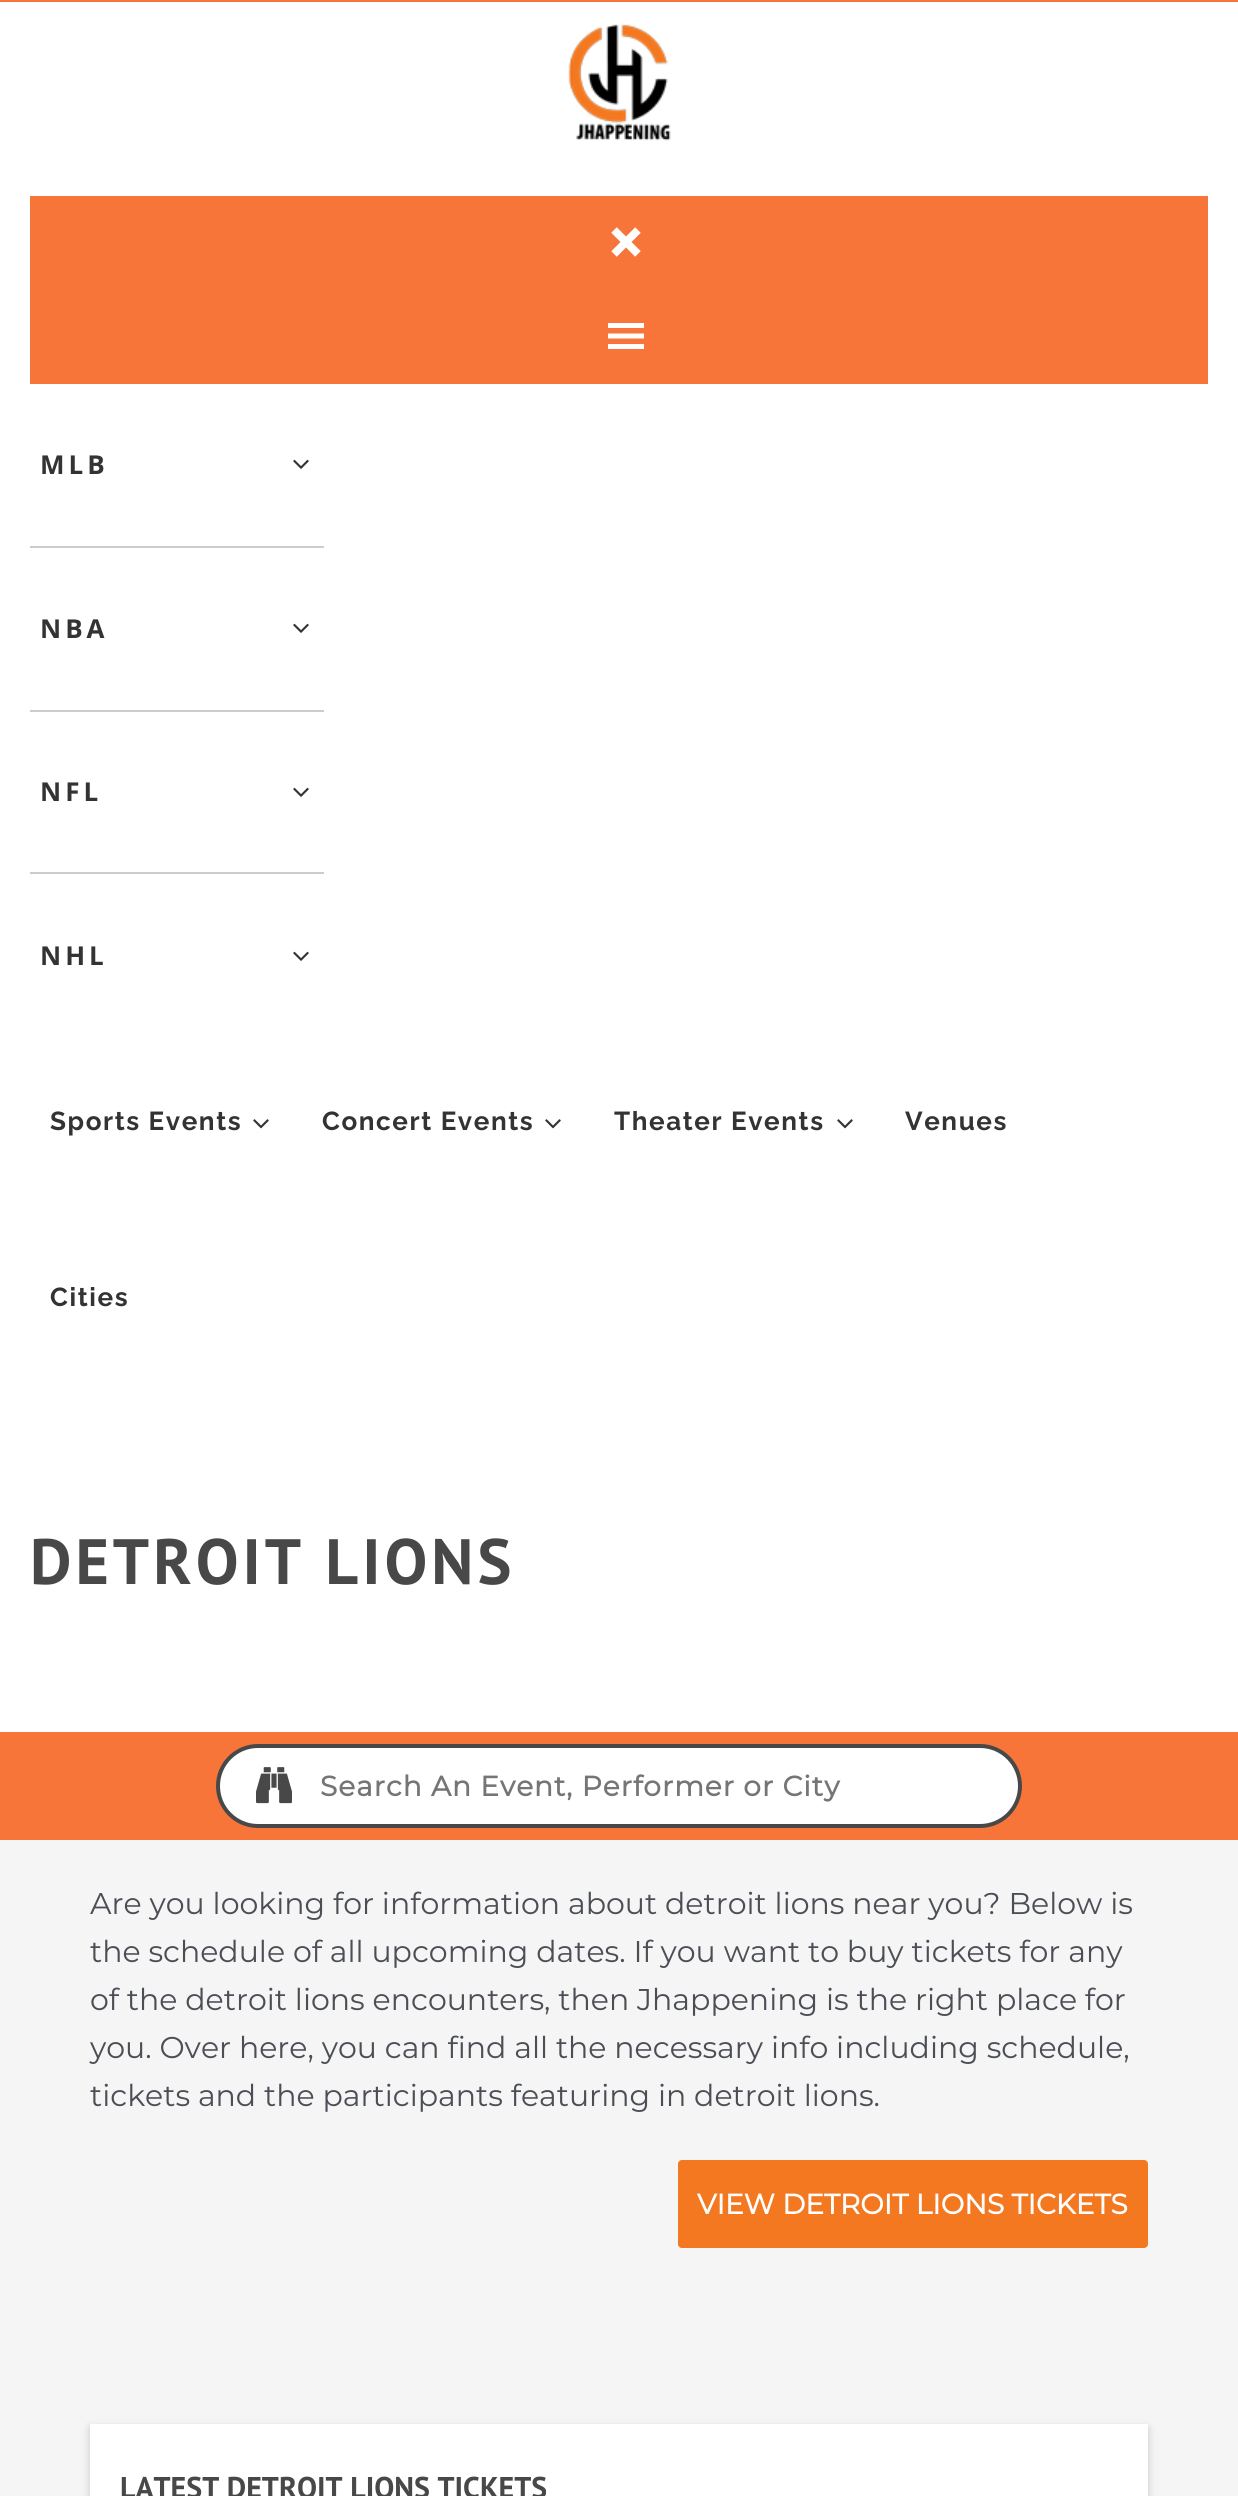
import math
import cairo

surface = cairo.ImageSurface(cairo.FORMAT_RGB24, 1238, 2496)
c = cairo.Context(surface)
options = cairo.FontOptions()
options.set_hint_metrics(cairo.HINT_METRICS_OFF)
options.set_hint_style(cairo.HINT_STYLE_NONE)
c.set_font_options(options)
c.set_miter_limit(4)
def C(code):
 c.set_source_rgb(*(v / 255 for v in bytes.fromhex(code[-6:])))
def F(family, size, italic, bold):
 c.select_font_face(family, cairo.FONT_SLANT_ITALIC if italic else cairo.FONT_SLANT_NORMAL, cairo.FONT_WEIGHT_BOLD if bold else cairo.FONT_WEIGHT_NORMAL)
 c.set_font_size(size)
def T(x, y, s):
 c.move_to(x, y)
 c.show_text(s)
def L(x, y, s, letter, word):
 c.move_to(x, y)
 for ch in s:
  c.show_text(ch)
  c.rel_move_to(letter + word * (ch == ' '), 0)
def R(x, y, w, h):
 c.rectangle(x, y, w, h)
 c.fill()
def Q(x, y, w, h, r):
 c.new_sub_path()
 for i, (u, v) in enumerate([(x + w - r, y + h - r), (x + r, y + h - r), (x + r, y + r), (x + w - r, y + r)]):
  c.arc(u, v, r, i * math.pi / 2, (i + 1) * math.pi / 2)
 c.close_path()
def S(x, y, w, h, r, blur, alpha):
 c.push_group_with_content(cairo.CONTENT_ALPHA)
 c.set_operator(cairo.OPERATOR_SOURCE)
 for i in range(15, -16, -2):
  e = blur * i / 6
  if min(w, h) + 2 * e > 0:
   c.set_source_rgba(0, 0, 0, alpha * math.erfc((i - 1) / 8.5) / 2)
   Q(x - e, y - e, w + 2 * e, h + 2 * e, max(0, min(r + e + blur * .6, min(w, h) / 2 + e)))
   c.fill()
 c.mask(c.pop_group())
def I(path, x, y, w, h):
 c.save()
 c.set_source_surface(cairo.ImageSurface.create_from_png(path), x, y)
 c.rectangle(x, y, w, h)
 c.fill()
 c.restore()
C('f77539')
c.paint()
C('ffffff')
R(0,2,1238,1730)
I('1.png',568,24,103,117)
C('f77539')
R(30,196,1178,188)
I('2.png',611,227,30,30)
C('ffffff')
c.new_path()
c.move_to(608,349)
c.line_to(644,349)
c.line_to(644,344)
c.line_to(608,344)
c.close_path()
c.move_to(608,323)
c.line_to(608,328)
c.line_to(644,328)
c.line_to(644,323)
c.close_path()
c.move_to(608,338.5)
c.line_to(644,338.5)
c.line_to(644,333.5)
c.line_to(608,333.5)
c.close_path()
c.fill()
C('cccccc')
R(30,546,294,2)
F('Open Sans',26,0,1)
C('333333')
L(40,474,'MLB',4,0)
I('3.png',293,459,16,10)
C('cccccc')
R(30,710,294,2)
C('333333')
L(40,638,'NBA',4,0)
I('3.png',293,623,16,10)
C('cccccc')
R(30,872,294,2)
C('333333')
L(40,801,'NFL',4,0)
I('3.png',293,787,16,10)
L(40,965,'NHL',4,0)
I('3.png',293,951,16,10)
F('Raleway',26,0,1)
L(50,1130,'Sports Events',1.6,0)
I('4.png',253,1119,16,10)
L(322,1130,'Concert Events',1.6,0)
I('4.png',545,1119,16,10)
L(614,1130,'Theater Events',1.6,0)
I('4.png',837,1119,16,10)
L(905,1130,'Venues',1.6,0)
L(50,1306,'Cities',1.6,0)
F('PT Sans',64,0,1)
C('484848')
L(30,1584,'DETROIT LIONS',4,0)
C('ffffff')
Q(218,1746,802,80,40)
c.fill_preserve()
C('484848')
c.set_line_width(4)
c.stroke()
I('5.png',256,1767,36,37)
F('Montserrat',28,0,1)
C('757575')
L(320,1796,'Search An Event, Performer or City',1,0)
C('f5f5f5')
R(0,1840,1238,656)
F('Montserrat Thin',30,0,0)
C('4c4e56')
T(90,1914,'Are you looking for information about detroit lions near you? Below is')
T(90,1962,'the schedule of all upcoming dates. If you want to buy tickets for any')
T(90,2010,'of the detroit lions encounters, then Jhappening is the right place for')
T(90,2058,'you. Over here, you can find all the necessary info including schedule,')
T(90,2106,'tickets and the participants featuring in detroit lions.')
C('f47820')
Q(678,2160,470,88,4)
c.fill()
F('Montserrat',28,0,1)
C('ffffff')
T(697,2214,'VIEW DETROIT LIONS TICKETS')
C('32313d')
S(90,2428,1058,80,0,4,.25)
C('ffffff')
R(90,2424,1058,72)
F('PT Sans',30,0,1)
C('484848')
T(120,2498,'LATEST DETROIT LIONS TICKETS')
surface.write_to_png('o.png')
